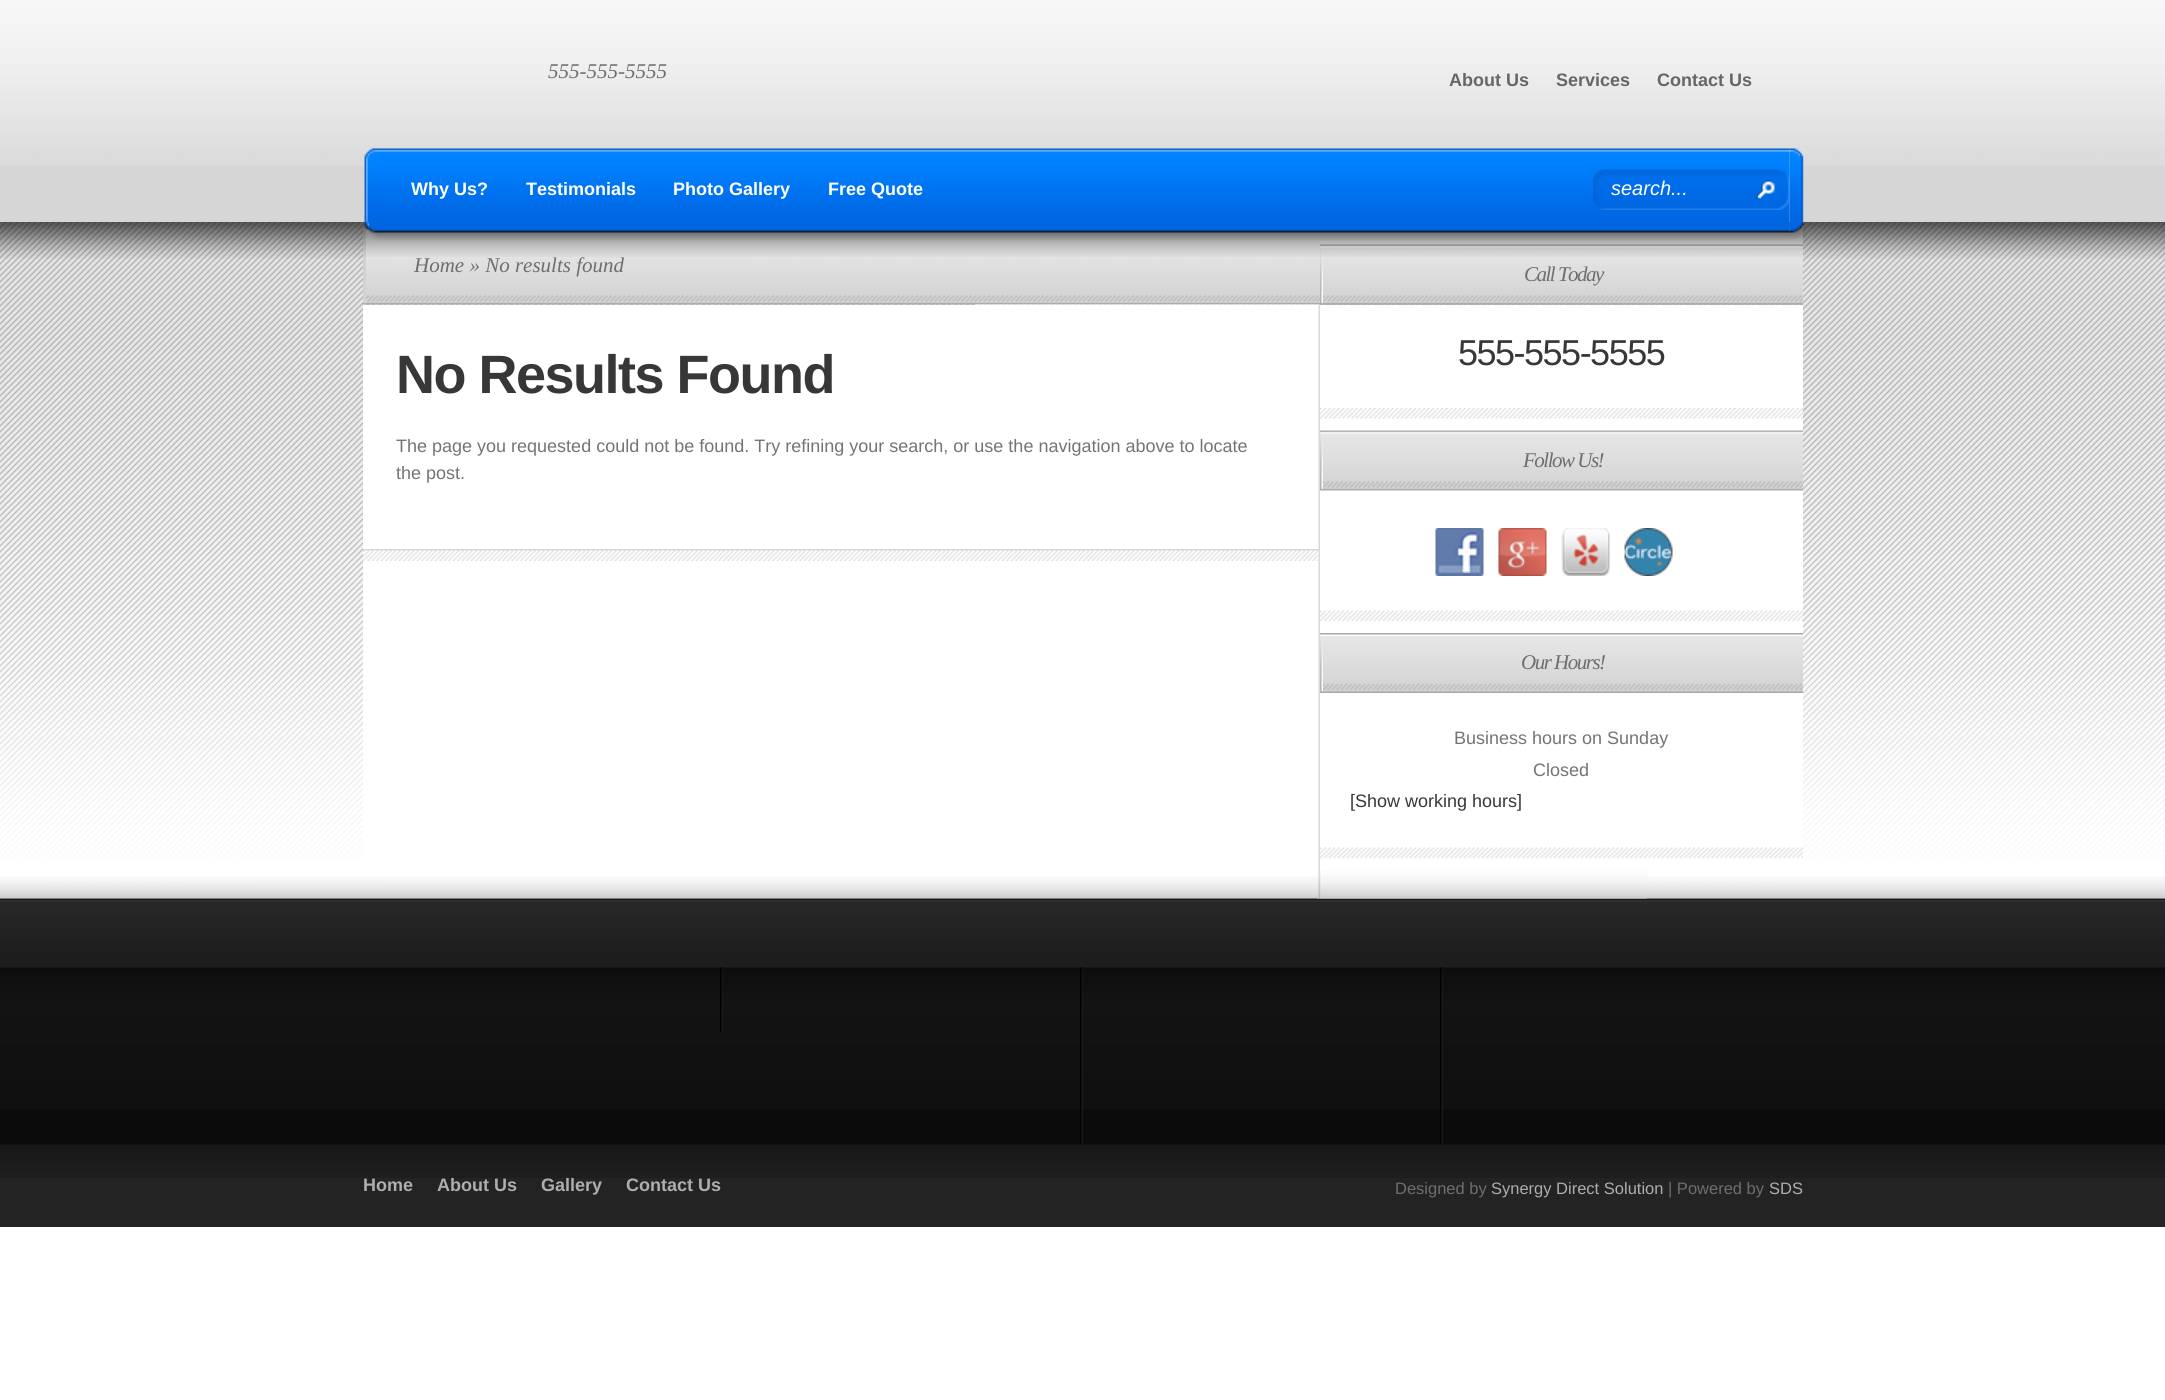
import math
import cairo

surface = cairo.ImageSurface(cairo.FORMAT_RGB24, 2165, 1400)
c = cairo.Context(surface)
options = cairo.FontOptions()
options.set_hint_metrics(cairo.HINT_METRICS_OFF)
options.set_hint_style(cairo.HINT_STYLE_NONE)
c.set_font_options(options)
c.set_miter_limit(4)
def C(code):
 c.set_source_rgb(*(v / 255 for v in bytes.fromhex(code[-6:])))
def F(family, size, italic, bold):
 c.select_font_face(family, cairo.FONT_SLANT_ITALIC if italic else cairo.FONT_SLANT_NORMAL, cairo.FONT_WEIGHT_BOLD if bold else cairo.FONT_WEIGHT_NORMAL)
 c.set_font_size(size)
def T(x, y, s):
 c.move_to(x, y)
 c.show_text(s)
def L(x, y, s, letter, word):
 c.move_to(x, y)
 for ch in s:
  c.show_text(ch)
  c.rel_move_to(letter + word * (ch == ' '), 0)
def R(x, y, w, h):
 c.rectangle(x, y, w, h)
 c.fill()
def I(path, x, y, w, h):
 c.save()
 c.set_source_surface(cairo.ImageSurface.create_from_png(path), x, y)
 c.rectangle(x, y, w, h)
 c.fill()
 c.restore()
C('ffffff')
c.paint()
C('d6d6d6')
R(0,166,2165,56)
I('1.png',0,0,2165,166)
F('Liberation Serif',21,1,0)
C('6e6e6e')
T(548,78,'555-555-5555')
F('Liberation Sans',18,0,1)
C('666666')
T(1449,86,'About Us')
T(1556,86,'Services')
T(1657,86,'Contact Us')
I('7.png',0,222,2165,636)
I('8.png',0,222,2165,37)
I('9.png',363,222,1440,83)
C('d3d2d2')
R(363,222,3,81)
I('13.png',1320,244,3,61)
I('14.png',1323,244,480,61)
I('11.png',363,222,1440,35)
I('2.png',363,148,15,92)
I('3.png',378,148,1412,93)
C('ffffff')
T(411,195,'Why Us?')
T(526,195,'Testimonials')
T(673,195,'Photo Gallery')
T(828,195,'Free Quote')
I('4.png',1593,169,197,41)
F('Liberation Sans',20,1,0)
T(1611,195,'search...')
I('5.png',1756,180,19,20)
I('6.png',1789,148,18,93)
R(363,305,1440,553)
I('10.png',975,304,345,566)
F('Liberation Serif',21,1,0)
C('6e6e6e')
T(414,272,'Home » No results found')
I('12.png',1320,408,483,11)
L(1524,281,'Call Today',-1.5,0)
F('Liberation Sans',36,0,0)
C('383737')
L(1458,365,'555-555-5555',-1.5,0)
I('15.png',1320,610,483,12)
I('16.png',1320,430,3,61)
I('17.png',1323,430,480,61)
F('Liberation Serif',21,1,0)
C('6e6e6e')
L(1523,467,'Follow Us!',-1.5,0)
I('18.png',1435,528,49,48)
I('19.png',1498,528,49,48)
I('20.png',1561,528,49,48)
I('21.png',1624,528,49,48)
I('22.png',1320,847,483,12)
I('23.png',1320,633,3,60)
I('24.png',1323,633,480,60)
L(1521,669,'Our Hours!',-1.5,0)
F('Liberation Sans',18,0,0)
C('757474')
T(1454,744,'Business hours on Sunday')
T(1533,776,'Closed')
C('383737')
T(1350,807,'[Show working hours]')
I('25.png',363,549,956,12)
F('Liberation Sans',54,0,1)
L(396,393,'No Results Found',-1.5,0)
F('Liberation Sans',18,0,0)
C('757474')
T(396,452,'The page you requested could not be found. Try refining your search, or use the navigation above to locate')
T(396,479,'the post.')
I('26.png',0,876,2165,23)
I('28.png',0,898,2165,211)
I('27.png',1317,870,330,29)
C('0b0b0b')
R(0,1109,2165,36)
I('29.png',720,967,3,65)
I('32.png',0,1144,2165,34)
I('30.png',1080,967,3,178)
I('31.png',1440,967,3,178)
C('232323')
R(0,1178,2165,49)
F('Liberation Sans',18,0,1)
C('aeaeae')
T(363,1191,'Home')
T(437,1191,'About Us')
T(541,1191,'Gallery')
T(626,1191,'Contact Us')
F('Liberation Sans',16.5,0,0)
C('6e6e6e')
T(1395,1194,'Designed by')
C('aeaeae')
T(1491,1194,'Synergy Direct Solution')
C('6e6e6e')
T(1668,1194,'| Powered by')
C('aeaeae')
T(1769,1194,'SDS')
surface.write_to_png('o.png')
